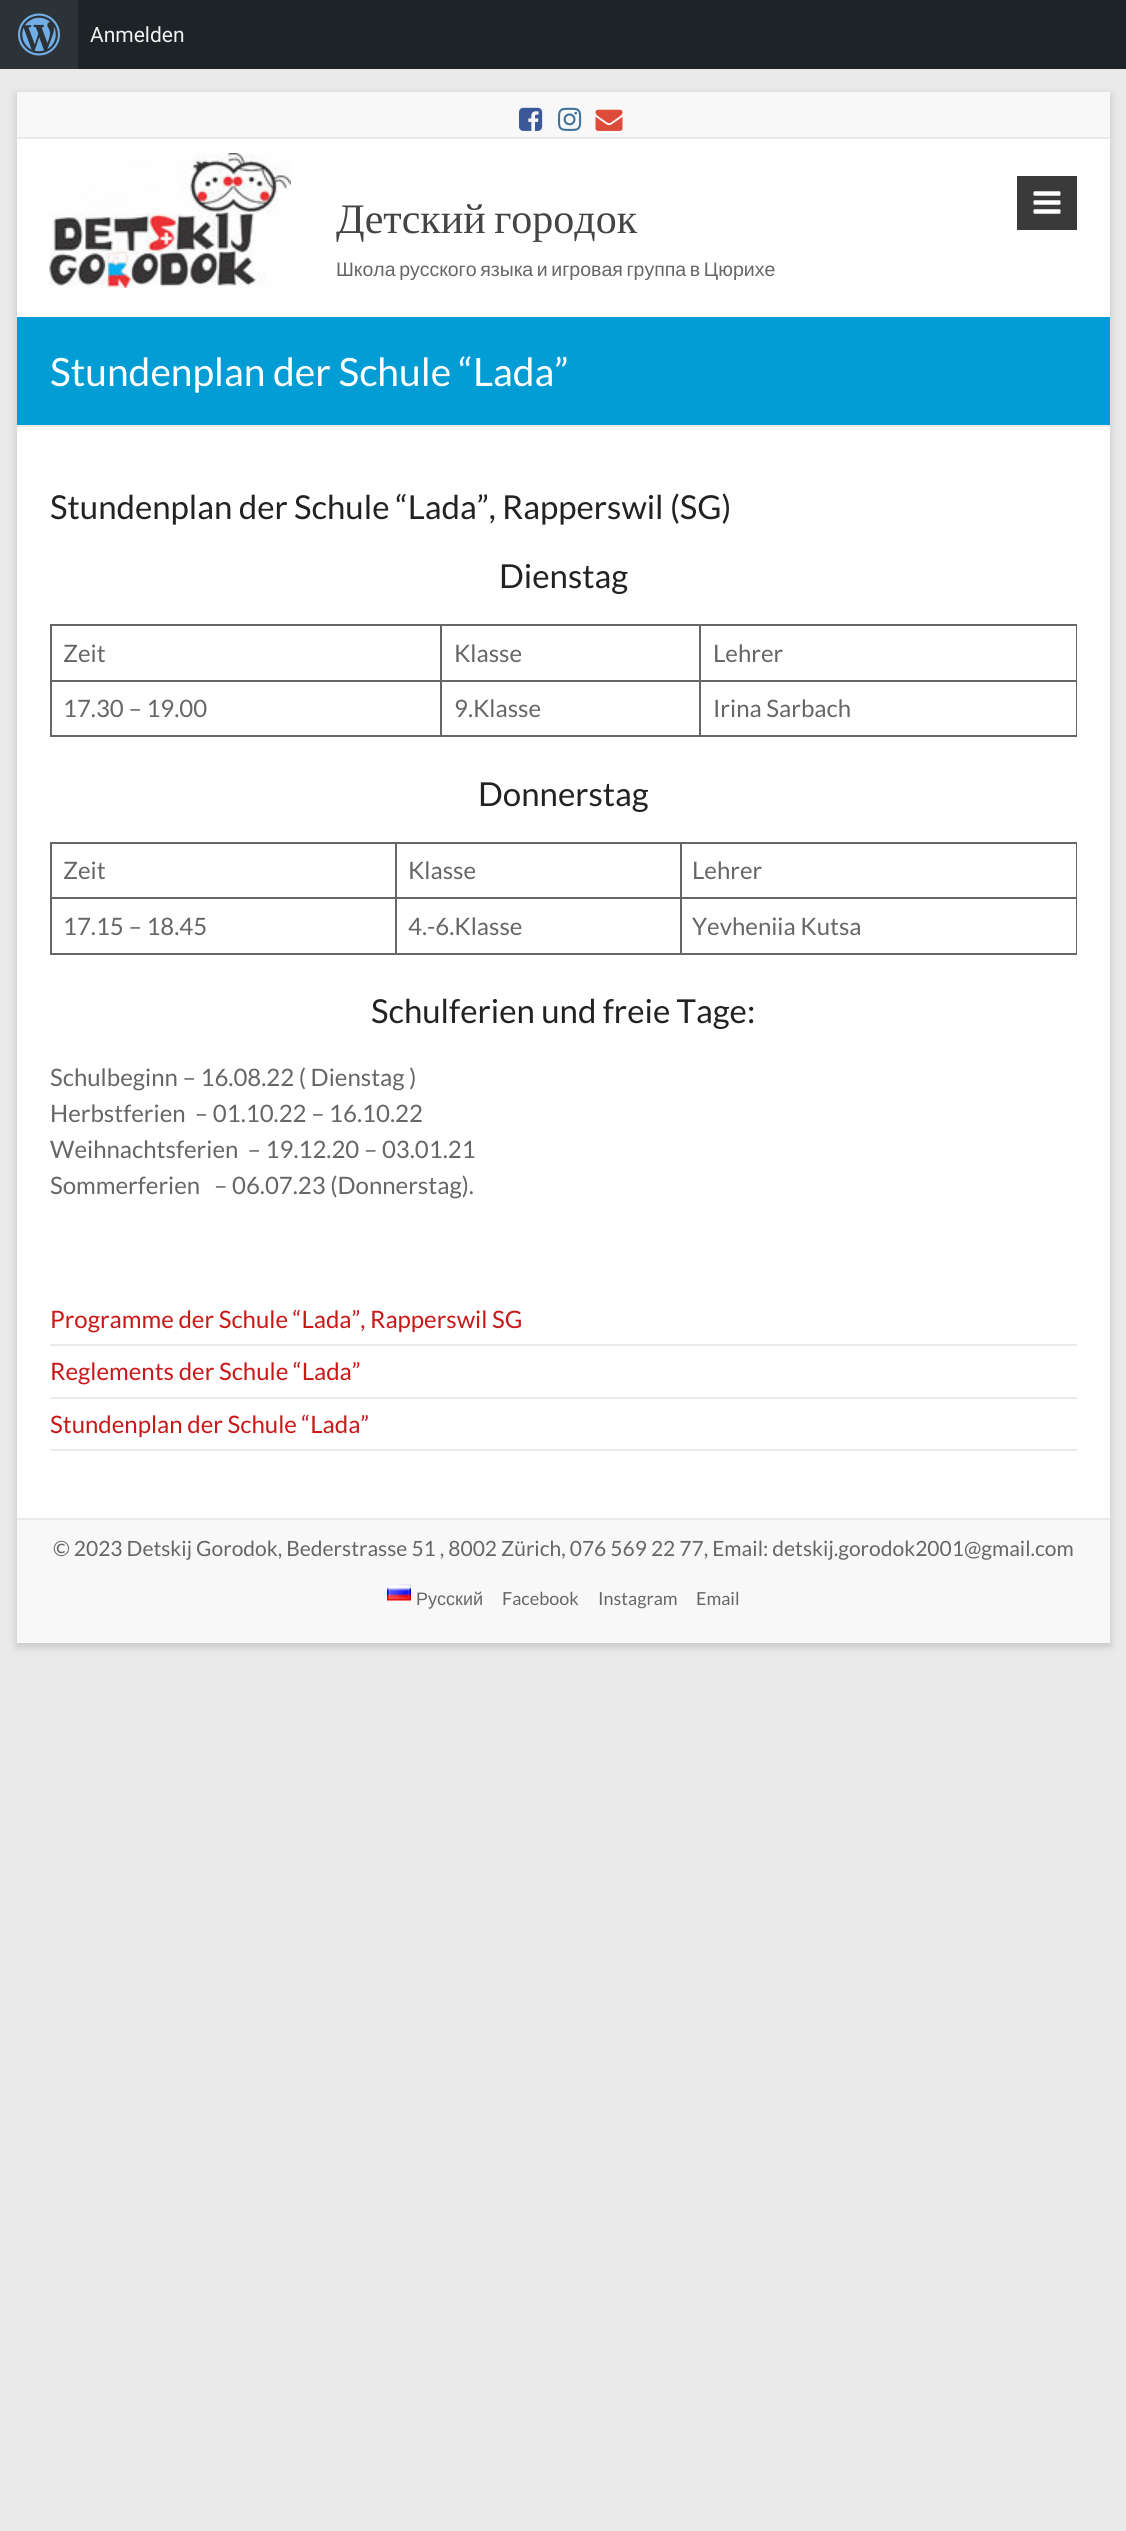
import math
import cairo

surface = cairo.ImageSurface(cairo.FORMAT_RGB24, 1126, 2531)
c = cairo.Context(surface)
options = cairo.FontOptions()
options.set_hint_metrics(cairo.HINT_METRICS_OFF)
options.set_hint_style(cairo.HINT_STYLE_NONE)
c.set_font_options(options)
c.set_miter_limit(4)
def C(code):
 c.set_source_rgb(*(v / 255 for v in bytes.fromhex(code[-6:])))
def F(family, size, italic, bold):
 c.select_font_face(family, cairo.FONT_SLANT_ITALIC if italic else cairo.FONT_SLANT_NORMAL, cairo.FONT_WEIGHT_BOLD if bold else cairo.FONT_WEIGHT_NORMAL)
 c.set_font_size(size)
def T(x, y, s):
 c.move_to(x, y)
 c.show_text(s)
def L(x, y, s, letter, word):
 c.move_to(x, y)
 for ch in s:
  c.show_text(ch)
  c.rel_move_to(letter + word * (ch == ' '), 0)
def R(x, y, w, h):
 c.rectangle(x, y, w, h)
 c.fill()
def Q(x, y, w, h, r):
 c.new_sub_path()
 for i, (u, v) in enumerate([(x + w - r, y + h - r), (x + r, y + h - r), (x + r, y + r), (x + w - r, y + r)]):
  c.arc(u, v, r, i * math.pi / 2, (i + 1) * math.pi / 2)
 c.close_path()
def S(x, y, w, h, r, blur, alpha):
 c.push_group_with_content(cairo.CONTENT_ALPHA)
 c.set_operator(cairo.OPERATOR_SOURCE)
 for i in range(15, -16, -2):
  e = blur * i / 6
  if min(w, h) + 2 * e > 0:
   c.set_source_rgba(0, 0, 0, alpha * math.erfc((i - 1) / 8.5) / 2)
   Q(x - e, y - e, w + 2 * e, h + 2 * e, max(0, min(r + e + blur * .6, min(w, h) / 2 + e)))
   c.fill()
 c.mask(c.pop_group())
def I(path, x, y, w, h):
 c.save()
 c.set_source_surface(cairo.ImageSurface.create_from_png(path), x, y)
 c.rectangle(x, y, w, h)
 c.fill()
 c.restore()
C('eaeaea')
c.paint()
C('1d2327')
R(78,0,1048,69)
C('2c3338')
R(0,0,78,69)
I('1.png',18,13,42,43)
F('Roboto',21,0,0)
C('f0f0f1')
T(90,42,'Anmelden')
C('646464')
S(17,95,1093,1551,0,4.5,.3)
C('ffffff')
R(17,139,1093,1379)
C('f8f8f8')
R(17,92,1093,45)
C('eaeaea')
R(17,137,1093,2)
I('2.png',519,107,24,24)
I('3.png',558,107,24,24)
I('4.png',595,109,28,22)
I('5.png',49,153,242,135)
F('Liberation Serif',42,0,0)
C('444444')
L(336,233,'Детский городок',0,-2)
F('Liberation Sans',19.5,0,0)
C('666666')
L(336,276,'Школа русского языка и игровая группа в Цюрихе',0,-1.75)
C('3a3a3a')
R(1017,176,60,54)
I('6.png',1033,191,28,23)
C('029dd5')
R(17,317,1093,108)
C('eaeaea')
R(17,425,1093,2)
F('Lato',39,0,0)
C('ffffff')
T(50,386,'Stundenplan der Schule “Lada”')
F('Lato',33,0,0)
C('222222')
T(50,519,'Stundenplan der Schule “Lada”, Rapperswil (SG)')
T(499,588,'Dienstag')
C('666666')
R(699,624,378,2)
R(699,680,378,2)
R(1076,680,1,57)
R(699,735,378,2)
R(699,680,2,57)
R(440,680,261,2)
R(699,624,2,57)
R(440,624,261,2)
R(440,735,261,2)
R(440,680,2,57)
R(50,680,391,2)
R(440,624,2,57)
R(50,624,391,2)
R(50,735,391,2)
R(50,680,2,57)
R(50,624,2,57)
F('Lato',24,0,0)
T(63,662,'Zeit')
T(454,662,'Klasse')
R(1076,624,1,57)
T(713,662,'Lehrer')
T(63,717,'17.30 – 19.00')
T(454,717,'9.Klasse')
T(713,717,'Irina Sarbach')
F('Lato',33,0,0)
C('222222')
T(478,806,'Donnerstag')
C('666666')
R(680,842,397,2)
R(680,897,397,2)
R(1076,897,1,57)
R(680,953,397,2)
R(680,897,2,57)
R(395,897,286,2)
R(680,842,2,57)
R(395,842,286,2)
R(395,953,286,2)
R(395,897,2,57)
R(50,897,346,2)
R(395,842,2,57)
R(50,842,346,2)
R(50,953,346,2)
R(50,897,2,57)
R(50,842,2,57)
F('Lato',24,0,0)
T(63,879,'Zeit')
T(408,879,'Klasse')
R(1076,842,1,57)
T(692,879,'Lehrer')
T(63,935,'17.15 – 18.45')
T(408,935,'4.-6.Klasse')
T(692,935,'Yevheniia Kutsa')
F('Lato',33,0,0)
C('222222')
T(371,1023,'Schulferien und freie Tage:')
F('Lato',24,0,0)
C('666666')
T(50,1086,'Schulbeginn – 16.08.22 ( Dienstag )')
T(50,1122,'Herbstferien  – 01.10.22 – 16.10.22')
T(50,1158,'Weihnachtsferien  – 19.12.20 – 03.01.21')
T(50,1194,'Sommerferien   – 06.07.23 (Donnerstag).')
C('eaeaea')
R(50,1344,1027,2)
C('c91818')
T(50,1328,'Programme der Schule “Lada”, Rapperswil SG')
C('eaeaea')
R(50,1397,1027,2)
C('c91818')
T(50,1380,'Reglements der Schule “Lada”')
C('eaeaea')
R(50,1449,1027,2)
C('c91818')
T(50,1433,'Stundenplan der Schule “Lada”')
C('f8f8f8')
R(17,1520,1093,123)
C('eaeaea')
R(17,1518,1093,2)
F('Lato',21,0,0)
C('666666')
T(53,1556,'© 2023 Detskij Gorodok, Bederstrasse 51 , 8002 Zürich, 076 569 22 77, Email: detskij.gorodok2001@gmail.com')
I('7.png',387,1584,24,17)
F('Liberation Sans',18,0,0)
T(416,1605,'Русский')
F('Lato',18,0,0)
T(502,1605,'Facebook')
T(598,1605,'Instagram')
T(696,1605,'Email')
surface.write_to_png('o.png')
